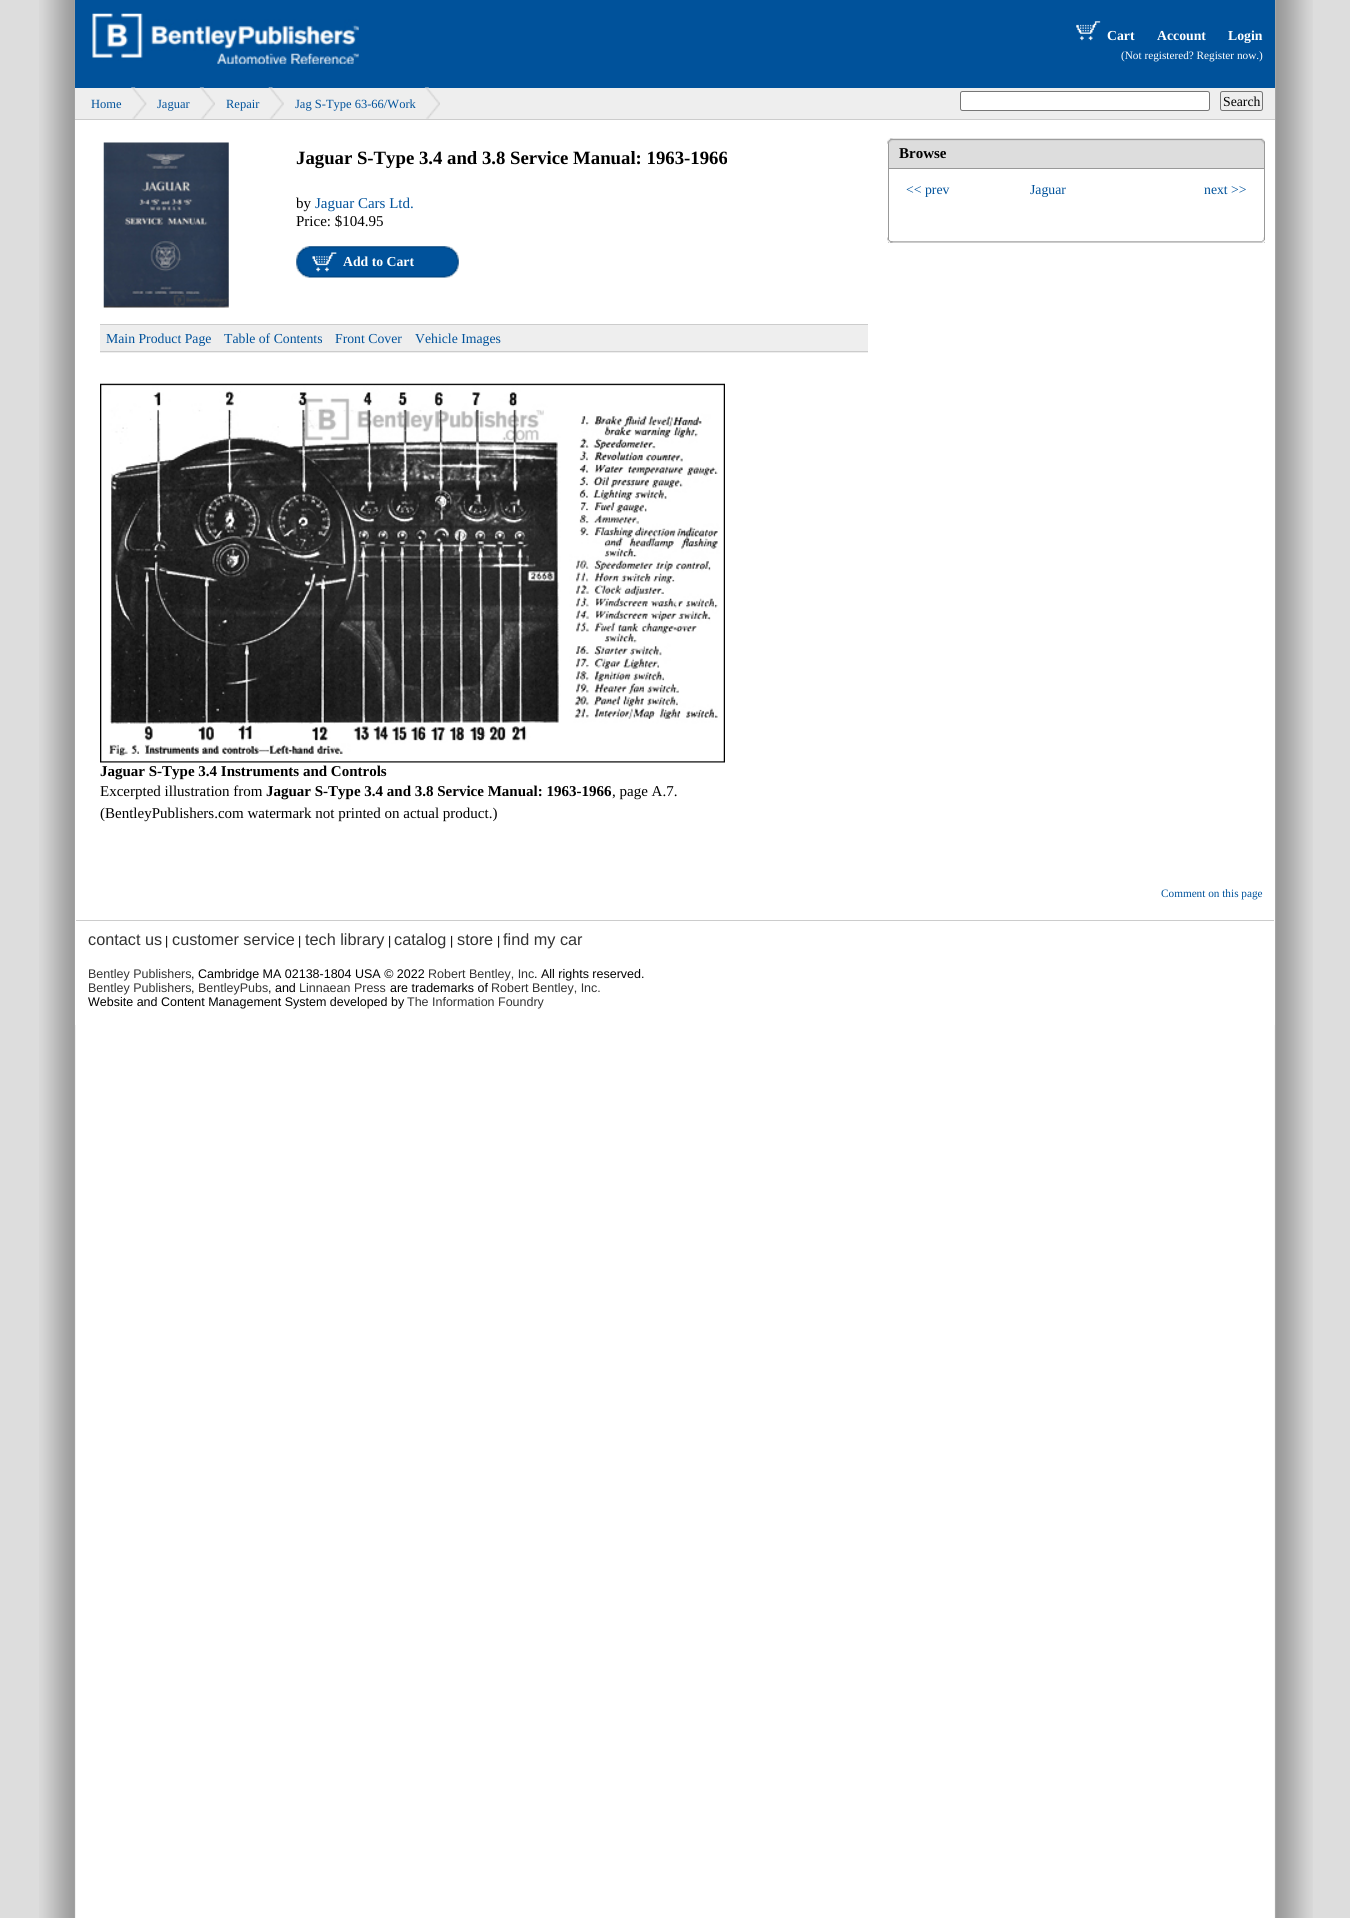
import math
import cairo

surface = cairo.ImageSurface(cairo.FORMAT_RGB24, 1350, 1918)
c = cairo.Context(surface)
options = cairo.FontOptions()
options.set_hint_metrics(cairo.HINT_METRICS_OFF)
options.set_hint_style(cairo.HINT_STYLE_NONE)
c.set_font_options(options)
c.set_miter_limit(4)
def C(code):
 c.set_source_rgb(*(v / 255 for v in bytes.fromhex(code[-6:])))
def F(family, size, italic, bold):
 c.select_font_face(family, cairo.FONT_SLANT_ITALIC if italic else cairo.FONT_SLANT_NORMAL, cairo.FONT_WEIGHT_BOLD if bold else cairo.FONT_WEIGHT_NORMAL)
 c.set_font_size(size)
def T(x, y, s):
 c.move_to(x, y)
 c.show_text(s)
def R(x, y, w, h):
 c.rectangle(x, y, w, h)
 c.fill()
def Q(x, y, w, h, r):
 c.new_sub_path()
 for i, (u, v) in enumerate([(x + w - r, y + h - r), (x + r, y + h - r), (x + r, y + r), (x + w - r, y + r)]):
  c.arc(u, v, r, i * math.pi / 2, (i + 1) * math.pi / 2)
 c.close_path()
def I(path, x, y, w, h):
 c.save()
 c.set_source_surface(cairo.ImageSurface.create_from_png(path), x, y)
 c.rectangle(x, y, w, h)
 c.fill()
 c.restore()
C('dddddd')
c.paint()
I('1.png',39,0,1274,1918)
C('ffffff')
R(75,120,1200,905)
C('00529b')
R(75,0,1200,88)
I('2.png',92,13,267,51)
I('3.png',1076,21,25,20)
F('Liberation Serif',13.75,0,1)
C('ffffff')
T(1107,40,'Cart')
T(1157,40,'Account')
T(1228,40,'Login')
F('Liberation Serif',11.25,0,0)
T(1121,59,'(Not registered? Register now.)')
C('eeeeee')
R(75,88,1200,31)
C('cccccc')
R(75,119,1200,1)
F('Liberation Serif',12.5,0,0)
C('00529b')
T(91,108,'Home')
I('4.png',131,87,16,32)
T(157,108,'Jaguar')
I('5.png',199,87,16,32)
T(226,108,'Repair')
I('6.png',268,87,16,32)
T(295,108,'Jag S-Type 63-66/Work')
I('7.png',424,87,16,32)
C('ffffff')
Q(960.5,91.5,249,19,2)
c.fill_preserve()
C('767676')
c.set_line_width(1)
c.stroke()
Q(1220.5,91.5,42,19,2)
c.stroke()
F('Liberation Serif',13.75,0,0)
C('000000')
T(1223,106,'Search')
I('8.png',103,142,126,166)
F('Liberation Serif',18.75,0,1)
T(296,164,'Jaguar S-Type 3.4 and 3.8 Service Manual: 1963-1966')
F('Liberation Serif',15,0,0)
T(296,208,'by')
C('00529b')
T(315,208,'Jaguar Cars Ltd.')
C('000000')
T(296,226,'Price: $104.95')
I('9.png',296,246,163,32)
I('10.png',312,252,25,20)
F('Liberation Serif',13.75,0,1)
C('ffffff')
T(343,266,'Add to Cart')
C('eeeeee')
R(100,325,768,28)
C('cccccc')
R(100,324,768,1)
R(100,351,768,1)
F('Liberation Serif',13.75,0,0)
C('00529b')
T(106,343,'Main Product Page')
T(224,343,'Table of Contents')
T(335,343,'Front Cover')
T(415,343,'Vehicle Images')
I('11.png',100,383,625,380)
F('Liberation Serif',15,0,1)
C('000000')
T(100,776,'Jaguar S-Type 3.4 Instruments and Controls')
F('Liberation Serif',15,0,0)
T(100,796,'Excerpted illustration from')
F('Liberation Serif',15,0,1)
T(266,796,'Jaguar S-Type 3.4 and 3.8 Service Manual: 1963-1966')
F('Liberation Serif',15,0,0)
T(612,796,', page A.7.')
T(100,818,'(BentleyPublishers.com watermark not printed on actual product.)')
C('999999')
R(1264,139,1,104)
R(888,139,1,104)
C('dddddd')
R(889,143,375,25)
I('12.png',890,138,375,6)
I('13.png',887,138,6,6)
C('999999')
R(889,168,375,1)
F('Liberation Serif',15,0,1)
C('000000')
T(899,158,'Browse')
F('Liberation Serif',13.75,0,0)
C('00529b')
T(906,194,'<< prev')
T(1030,194,'Jaguar')
T(1204,194,'next >>')
I('14.png',890,237,375,6)
I('15.png',887,237,6,6)
F('Liberation Serif',11.25,0,0)
T(1161,897,'Comment on this page')
C('cccccc')
R(76,920,1198,1)
F('Liberation Sans',16.25,0,0)
C('333333')
T(88,945,'contact us')
F('Liberation Sans',12.5,0,0)
C('000000')
T(165,945,'|')
F('Liberation Sans',16.25,0,0)
C('333333')
T(172,945,'customer service')
F('Liberation Sans',12.5,0,0)
C('000000')
T(298,945,'|')
F('Liberation Sans',16.25,0,0)
C('333333')
T(305,945,'tech library')
F('Liberation Sans',12.5,0,0)
C('000000')
T(388,945,'|')
F('Liberation Sans',16.25,0,0)
C('333333')
T(394,945,'catalog')
F('Liberation Sans',12.5,0,0)
C('000000')
T(450,945,'|')
F('Liberation Sans',16.25,0,0)
C('333333')
T(457,945,'store')
F('Liberation Sans',12.5,0,0)
C('000000')
T(497,945,'|')
F('Liberation Sans',16.25,0,0)
C('333333')
T(503,945,'find my car')
F('Liberation Sans',12.5,0,0)
T(88,978,'Bentley Publishers')
C('000000')
T(191,978,', Cambridge MA 02138-1804 USA © 2022')
C('333333')
T(428,978,'Robert Bentley, Inc')
C('000000')
T(534,978,'. All rights reserved.')
C('333333')
T(88,992,'Bentley Publishers')
C('000000')
T(191,992,',')
C('333333')
T(198,992,'BentleyPubs')
C('000000')
T(268,992,', and')
C('333333')
T(299,992,'Linnaean Press')
C('000000')
T(390,992,'are trademarks of')
C('333333')
T(491,992,'Robert Bentley, Inc.')
C('000000')
T(88,1006,'Website and Content Management System developed by')
C('333333')
T(407,1006,'The Information Foundry')
surface.write_to_png('o.png')
